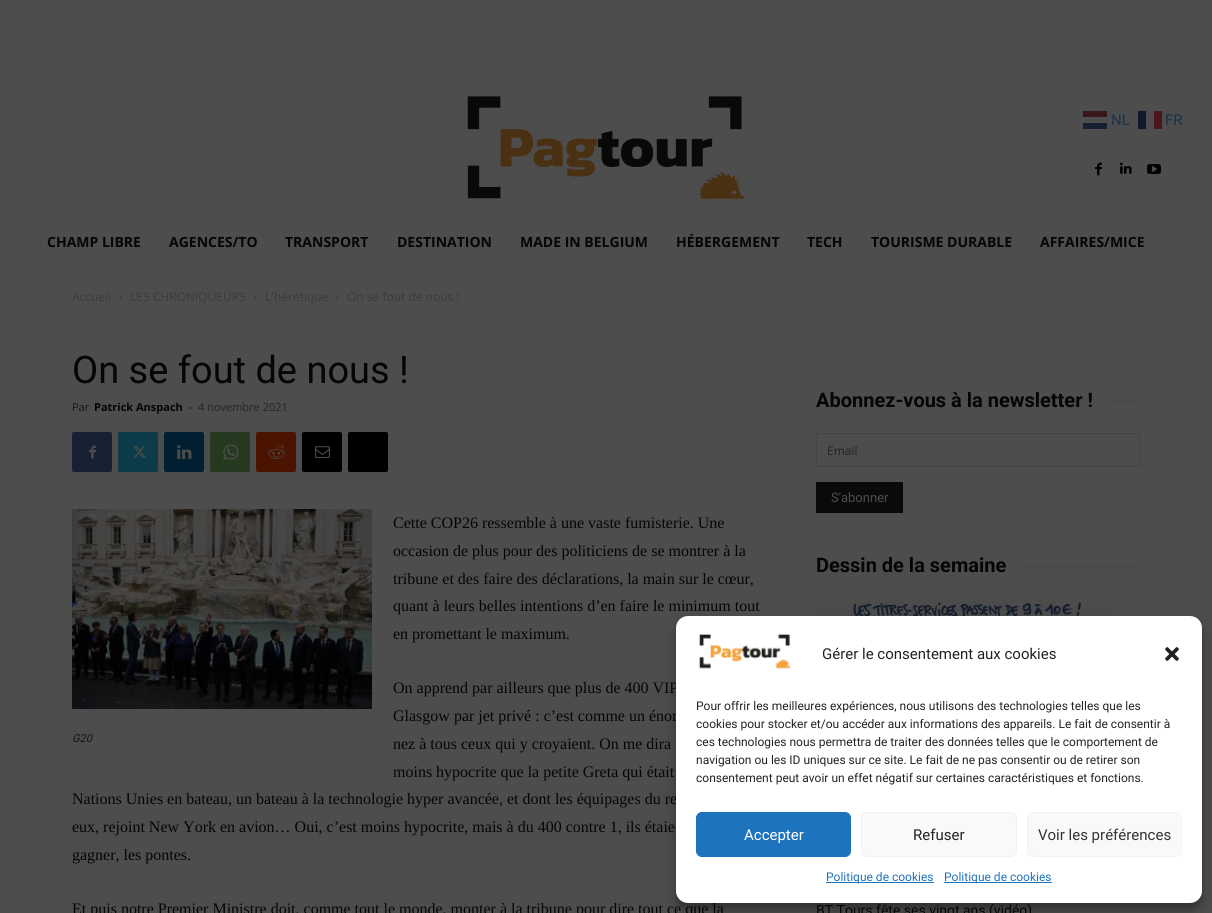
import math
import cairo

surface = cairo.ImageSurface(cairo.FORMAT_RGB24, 1212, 913)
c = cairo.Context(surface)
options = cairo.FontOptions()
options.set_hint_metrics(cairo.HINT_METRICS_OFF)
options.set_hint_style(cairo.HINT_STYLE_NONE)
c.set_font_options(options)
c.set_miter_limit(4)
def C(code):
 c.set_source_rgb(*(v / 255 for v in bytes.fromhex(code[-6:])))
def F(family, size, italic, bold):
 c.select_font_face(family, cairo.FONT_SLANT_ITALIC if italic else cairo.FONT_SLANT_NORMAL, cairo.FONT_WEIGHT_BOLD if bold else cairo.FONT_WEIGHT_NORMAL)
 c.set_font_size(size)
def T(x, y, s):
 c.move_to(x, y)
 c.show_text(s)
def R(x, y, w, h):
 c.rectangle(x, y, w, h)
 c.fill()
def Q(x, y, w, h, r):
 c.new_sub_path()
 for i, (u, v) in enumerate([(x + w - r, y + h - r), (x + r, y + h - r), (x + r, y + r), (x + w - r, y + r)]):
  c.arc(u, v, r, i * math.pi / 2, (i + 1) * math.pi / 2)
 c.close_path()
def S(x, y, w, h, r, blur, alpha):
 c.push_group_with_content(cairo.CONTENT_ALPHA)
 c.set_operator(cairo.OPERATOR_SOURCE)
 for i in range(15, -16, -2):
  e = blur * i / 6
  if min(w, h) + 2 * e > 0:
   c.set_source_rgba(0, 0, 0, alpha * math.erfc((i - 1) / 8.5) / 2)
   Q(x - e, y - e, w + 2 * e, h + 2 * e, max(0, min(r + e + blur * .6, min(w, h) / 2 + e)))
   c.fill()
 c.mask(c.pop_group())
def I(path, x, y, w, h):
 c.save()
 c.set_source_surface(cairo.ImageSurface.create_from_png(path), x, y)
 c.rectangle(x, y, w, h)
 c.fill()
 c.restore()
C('4d4d4d')
c.paint()
I('1.png',467,96,278,103)
F('Roboto',15,0,0)
C('173547')
T(1111,125,'NL')
C('172031')
R(1083,123,24,6)
C('391619')
R(1083,111,24,6)
C('173547')
T(1165,125,'FR')
C('0f182e')
R(1138,111,8,18)
C('4a151b')
R(1154,111,8,18)
I('2.png',1095,162,7,14)
I('3.png',1120,162,12,12)
I('4.png',1147,164,14,10)
F('Open Sans',14,0,1)
C('050505')
T(47,247,'CHAMP LIBRE')
T(169,247,'AGENCES/TO')
T(285,247,'TRANSPORT')
T(397,247,'DESTINATION')
T(520,247,'MADE IN BELGIUM')
T(676,247,'HÉBERGEMENT')
T(807,247,'TECH')
T(871,247,'TOURISME DURABLE')
T(1040,247,'AFFAIRES/MICE')
F('Open Sans',12,0,0)
C('3b3b3b')
T(72,301,'Accueil')
I('5.png',119,295,3,5)
T(130,301,'LES CHRONIQUEURS')
I('5.png',254,295,3,5)
T(265,301,'L\'hérétique')
I('5.png',336,295,3,5)
T(347,301,'On se fout de nous !')
F('Roboto',38,0,0)
C('050505')
T(72,383,'On se fout de nous !')
F('Open Sans',11,0,0)
C('141414')
T(72,411,'Par')
F('Open Sans',11,0,1)
C('050505')
T(94,411,'Patrick Anspach')
F('Open Sans',11,0,0)
C('141414')
T(189,411,'-')
C('232323')
T(198,411,'4 novembre 2021')
C('182133')
Q(72,432,40,40,2)
c.fill()
I('6.png',89,445,7,14)
C('0c3b4a')
Q(118,432,40,40,2)
c.fill()
I('7.png',133,446,13,12)
C('011f30')
Q(164,432,40,40,2)
c.fill()
I('8.png',177,445,15,14)
C('253920')
Q(210,432,40,40,2)
c.fill()
I('9.png',223,444,16,16)
C('4a1400')
Q(256,432,40,40,2)
c.fill()
I('10.png',268,445,17,14)
C('000000')
Q(302,432,40,40,2)
c.fill()
I('11.png',315,446,15,12)
Q(348,432,40,40,2)
c.fill()
F('Liberation Serif',16,0,0)
C('050505')
T(393,528,'Cette COP26 ressemble à une vaste fumisterie. Une')
T(393,556,'occasion de plus pour des politiciens de se montrer à la')
T(393,584,'tribune et des faire des déclarations, la main sur le cœur,')
T(393,611,'quant à leurs belles intentions d’en faire le minimum tout')
T(393,639,'en promettant le maximum.')
T(393,693,'On apprend par ailleurs que plus de 400 VIP')
T(393,721,'Glasgow par jet privé : c’est comme un énor')
T(393,749,'nez à tous ceux qui y croyaient. On me dira')
T(393,777,'moins hypocrite que la petite Greta qui était')
T(72,804,'Nations Unies en bateau, un bateau à la technologie hyper avancée, et dont les équipages du re')
T(72,832,'eux, rejoint New York en avion… Oui, c’est moins hypocrite, mais à du 400 contre 1, ils étaie')
T(72,860,'gagner, les pontes.')
I('12.png',72,509,300,200)
F('Roboto',11,1,0)
C('141414')
T(72,742,'G20')
F('Liberation Serif',16,0,0)
C('050505')
T(72,914,'Et puis notre Premier Ministre doit, comme tout le monde, monter à la tribune pour dire tout ce que la')
F('Roboto',20,0,1)
T(816,407,'Abonnez-vous à la newsletter !')
C('4a4a4a')
R(1113,399,27,4)
c.rectangle(816.5,433.5,323,33)
C('444444')
c.set_line_width(1)
c.stroke()
F('Open Sans',12,0,0)
C('232323')
T(827,455,'Email')
C('0a0a0a')
R(816,482,87,31)
F('Roboto',13,0,0)
C('4d4d4d')
T(831,502,'S\'abonner')
F('Roboto',20,0,1)
C('050505')
T(816,572,'Dessin de la semaine')
C('4a4a4a')
R(1026,564,114,4)
I('13.png',816,598,300,18)
F('Roboto',14,0,0)
C('050505')
T(816,915,'BT Tours fête ses vingt ans (vidéo)')
C('000000')
S(676,622,526,287,12,3,.23)
S(676,626,526,287,12,10,.19)
C('ffffff')
Q(676,616,526,287,12)
c.fill()
I('14.png',699,634,92,35)
F('Roboto',15,0,0)
C('232323')
T(822,659,'Gérer le consentement aux cookies')
I('15.png',1165,647,14,14)
F('Roboto',12,0,0)
T(696,710,'Pour offrir les meilleures expériences, nous utilisons des technologies telles que les')
T(696,728,'cookies pour stocker et/ou accéder aux informations des appareils. Le fait de consentir à')
T(696,746,'ces technologies nous permettra de traiter des données telles que le comportement de')
T(696,764,'navigation ou les ID uniques sur ce site. Le fait de ne pas consentir ou de retirer son')
T(696,782,'consentement peut avoir un effet négatif sur certaines caractéristiques et fonctions.')
C('1e73be')
Q(696.5,812.5,154,44,5.5)
c.fill_preserve()
c.stroke()
F('Roboto',15,0,0)
C('ffffff')
T(744,840,'Accepter')
C('f9f9f9')
Q(861.5,812.5,155,44,5.5)
c.fill_preserve()
C('f2f2f2')
c.stroke()
C('232323')
T(913,840,'Refuser')
C('f9f9f9')
Q(1027.5,812.5,154,44,5.5)
c.fill_preserve()
C('f2f2f2')
c.stroke()
C('333333')
T(1038,840,'Voir les préférences')
C('1e73be')
R(826,882,108,1)
F('Roboto',12,0,0)
T(826,881,'Politique de cookies')
R(944,882,108,1)
T(944,881,'Politique de cookies')
surface.write_to_png('o.png')
